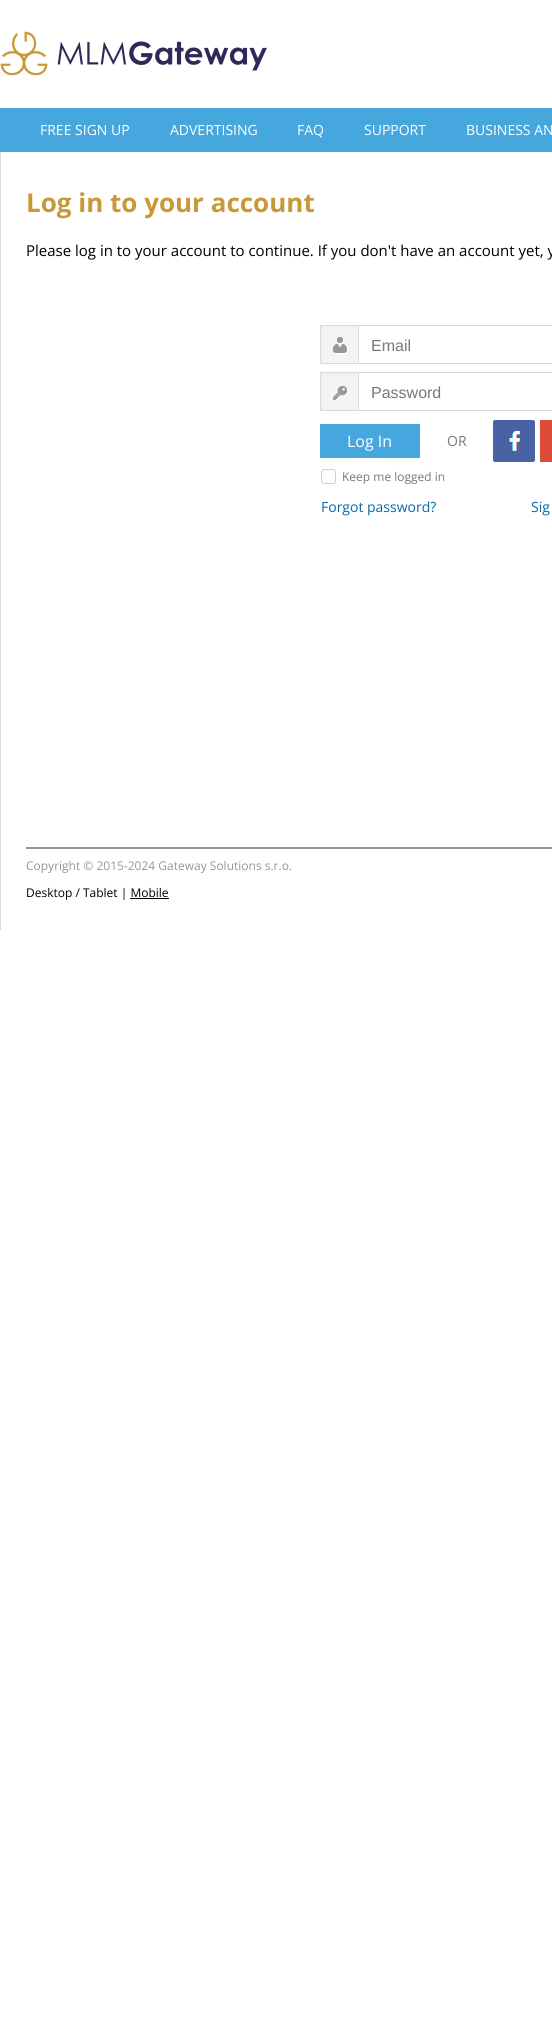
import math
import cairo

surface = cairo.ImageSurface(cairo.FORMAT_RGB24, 552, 2038)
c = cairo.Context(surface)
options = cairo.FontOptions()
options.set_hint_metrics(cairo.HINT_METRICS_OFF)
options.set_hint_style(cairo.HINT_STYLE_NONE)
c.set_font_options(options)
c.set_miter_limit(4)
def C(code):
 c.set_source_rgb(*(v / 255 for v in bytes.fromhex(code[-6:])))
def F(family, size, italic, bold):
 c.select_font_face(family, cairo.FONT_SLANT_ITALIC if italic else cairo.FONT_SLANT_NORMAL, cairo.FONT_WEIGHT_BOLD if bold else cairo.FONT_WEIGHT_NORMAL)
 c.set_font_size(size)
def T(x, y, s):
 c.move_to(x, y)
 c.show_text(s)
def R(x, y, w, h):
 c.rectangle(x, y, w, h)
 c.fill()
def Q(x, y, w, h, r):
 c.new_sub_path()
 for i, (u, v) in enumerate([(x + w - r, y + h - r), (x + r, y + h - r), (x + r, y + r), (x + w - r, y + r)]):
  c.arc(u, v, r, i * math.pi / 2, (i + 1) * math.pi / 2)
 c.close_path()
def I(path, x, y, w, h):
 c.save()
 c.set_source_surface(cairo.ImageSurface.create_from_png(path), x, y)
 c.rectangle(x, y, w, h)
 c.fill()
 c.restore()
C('ffffff')
c.paint()
I('1.png',0,31,267,45)
C('46a7de')
R(0,108,552,44)
F('Open Sans',14,0,0)
C('ffffff')
T(40,135,'FREE SIGN UP')
T(170,135,'ADVERTISING')
T(297,135,'FAQ')
T(364,135,'SUPPORT')
T(466,135,'BUSINESS AN')
C('d9d9d9')
R(0,152,1,778)
F('Open Sans',26,0,1)
C('c99937')
T(26,212,'Log in to your account')
F('Open Sans',15,0,0)
C('000000')
T(26,256,'Please log in to your account to continue. If you don\'t have an account yet, y')
I('2.png',321,326,38,37)
Q(320.5,325.5,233,38,.5)
C('d9d9d9')
c.set_line_width(1)
c.stroke()
F('Liberation Sans',16,0,0)
C('787878')
T(371,351,'Email')
I('3.png',321,373,38,37)
Q(320.5,372.5,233,38,.5)
C('d9d9d9')
c.stroke()
C('787878')
T(371,398,'Password')
C('46a7de')
Q(320,424,100,34,1)
c.fill()
F('Open Sans',16,0,0)
C('ffffff')
T(347,447,'Log In')
F('Open Sans',14,0,0)
C('787878')
T(447,446,'OR')
I('4.png',493,420,42,42)
C('dd4b39')
R(540,420,12,42)
I('5.png',321,469,15,15)
F('Open Sans',12,0,0)
C('787878')
T(342,481,'Keep me logged in')
F('Open Sans',14,0,0)
C('016ba7')
T(321,512,'Forgot password?')
T(531,512,'Sig')
C('969696')
R(26,847,526,2)
F('Open Sans',12,0,0)
C('959595')
T(26,870,'Copyright © 2015-2024 Gateway Solutions s.r.o.')
C('000000')
T(26,897,'Desktop / Tablet | Mobile')
R(130,898,39,1)
surface.write_to_png('o.png')
